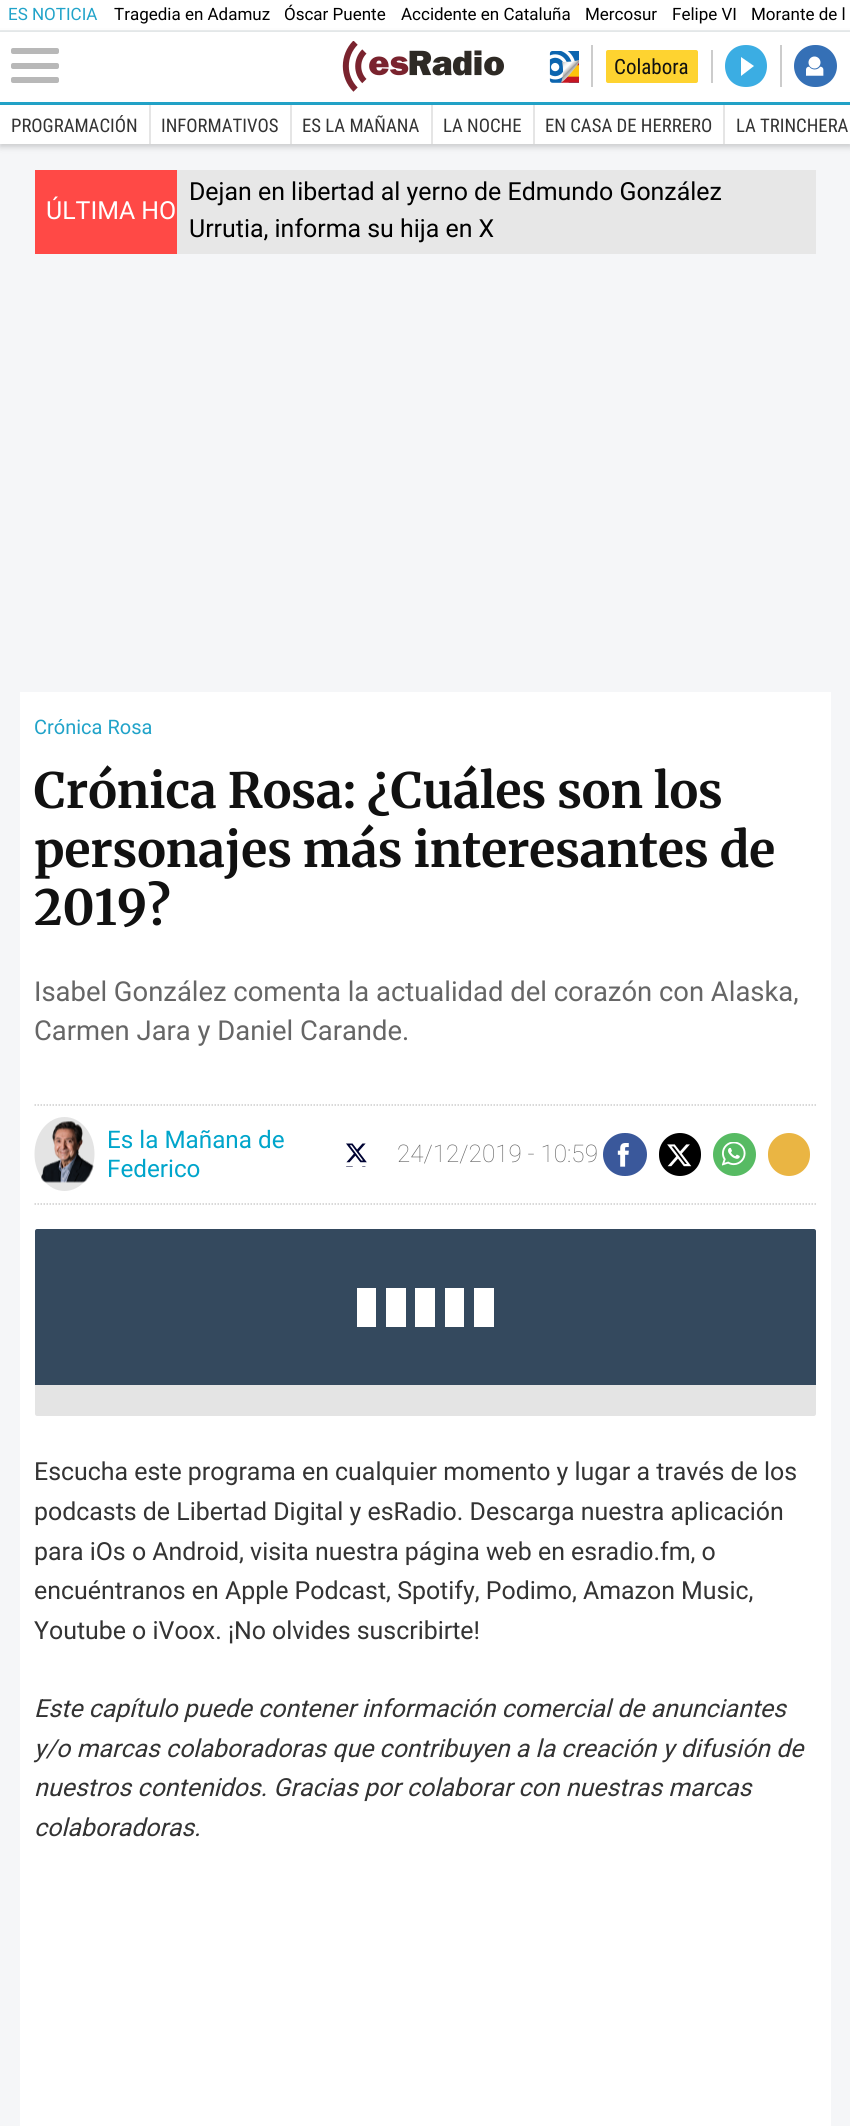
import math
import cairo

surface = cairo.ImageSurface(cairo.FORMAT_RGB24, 850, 2126)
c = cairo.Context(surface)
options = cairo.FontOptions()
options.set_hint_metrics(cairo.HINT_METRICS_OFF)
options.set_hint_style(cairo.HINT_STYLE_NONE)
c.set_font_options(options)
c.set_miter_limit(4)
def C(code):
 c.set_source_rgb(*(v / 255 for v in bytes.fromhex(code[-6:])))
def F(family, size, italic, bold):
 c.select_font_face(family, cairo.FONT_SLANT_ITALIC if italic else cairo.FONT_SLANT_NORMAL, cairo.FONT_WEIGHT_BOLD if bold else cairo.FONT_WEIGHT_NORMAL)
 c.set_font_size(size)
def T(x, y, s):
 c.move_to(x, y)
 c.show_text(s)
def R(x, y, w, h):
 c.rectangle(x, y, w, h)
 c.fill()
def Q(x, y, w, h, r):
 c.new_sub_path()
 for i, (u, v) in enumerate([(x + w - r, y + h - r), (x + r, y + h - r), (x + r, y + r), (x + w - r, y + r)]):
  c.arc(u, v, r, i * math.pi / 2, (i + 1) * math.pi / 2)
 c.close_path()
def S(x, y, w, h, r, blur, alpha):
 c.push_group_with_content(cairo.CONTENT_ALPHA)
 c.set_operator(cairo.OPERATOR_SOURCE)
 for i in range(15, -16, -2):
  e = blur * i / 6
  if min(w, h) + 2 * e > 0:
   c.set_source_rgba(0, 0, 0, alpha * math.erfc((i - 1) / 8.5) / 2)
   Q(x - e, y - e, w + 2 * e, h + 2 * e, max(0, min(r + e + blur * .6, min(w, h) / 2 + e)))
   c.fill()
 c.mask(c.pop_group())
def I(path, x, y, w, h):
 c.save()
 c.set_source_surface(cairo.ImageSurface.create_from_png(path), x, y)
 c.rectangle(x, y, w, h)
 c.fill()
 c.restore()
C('f5f6f8')
c.paint()
C('ffffff')
R(0,0,850,30)
C('ecf0f1')
R(0,30,850,2)
F('Roboto',17,0,0)
C('21a3c9')
T(8,20,'ES NOTICIA')
C('000000')
T(114,20,'Tragedia en Adamuz')
T(284,20,'Óscar Puente')
T(401,20,'Accidente en Cataluña')
T(585,20,'Mercosur')
T(672,20,'Felipe VI')
T(751,20,'Morante de l')
C('323232')
S(0,35,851,73,0,3,.44)
C('ffffff')
R(0,32,850,70)
C('21a3c9')
R(0,102,850,3)
C('b8b8b8')
Q(11,48,48,6,2)
c.fill()
Q(11,63,48,6,2)
c.fill()
Q(11,77,48,6,2)
c.fill()
I('1.png',342,41,162,51)
C('cccccc')
R(591,45,2,42)
I('2.png',549,51,30,32)
R(711,50,2,33)
C('fed330')
Q(606,50,92,33,2)
c.fill()
F('Roboto Condensed',21,0,0)
C('111111')
T(614,74,'Colabora')
C('cccccc')
R(780,45,2,42)
C('3bade3')
c.new_path()
c.move_to(746,45)
c.curve_to(718,45,718,87,746,87)
c.curve_to(774,87,774,45,746,45)
c.close_path()
c.move_to(741,76)
c.line_to(741,57)
c.line_to(754,66)
c.close_path()
c.fill()
C('3570b6')
Q(794,45,43,42,21)
c.fill()
I('3.png',806,56,18,20)
C('323232')
S(0,108,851,39,0,3,.22)
C('ffffff')
R(0,105,850,39)
F('Roboto Condensed',18.75,0,0)
C('333333')
T(11,132,'PROGRAMACIÓN')
C('e5e5e5')
R(149,105,2,39)
C('333333')
T(161,132,'INFORMATIVOS')
C('e5e5e5')
R(290,105,2,39)
C('333333')
T(302,132,'ES LA MAÑANA')
C('e5e5e5')
R(431,105,2,39)
C('333333')
T(443,132,'LA NOCHE')
C('e5e5e5')
R(533,105,2,39)
C('333333')
T(545,132,'EN CASA DE HERRERO')
C('e5e5e5')
R(723,105,2,39)
C('333333')
T(736,132,'LA TRINCHERA')
C('ff4946')
R(35,170,142,84)
F('Roboto',24.9,0,0)
C('ffffff')
T(46,219,'ÚLTIMA HO')
C('e7e7e7')
R(177,170,639,84)
C('000000')
T(189,200,'Dejan en libertad al yerno de Edmundo González')
T(189,237,'Urrutia, informa su hija en X')
C('ffffff')
R(20,692,811,1434)
F('Roboto',20,0,0)
C('21a3c9')
T(34,734,'Crónica Rosa')
F('Merriweather',48.6,0,1)
C('111111')
T(34,808,'Crónica Rosa: ¿Cuáles son los')
T(34,867,'personajes más interesantes de')
T(34,925,'2019?')
F('Roboto',27.4,0,0)
C('666666')
T(34,1001,'Isabel González comenta la actualidad del corazón con Alaska,')
T(34,1040,'Carmen Jara y Daniel Carande.')
c.new_path()
c.move_to(34.5,1105)
c.line_to(816,1105)
C('cccccc')
c.set_line_width(1.5)
c.set_dash([1.5,1.5])
c.stroke()
c.new_path()
c.move_to(34.5,1204)
c.line_to(816,1204)
c.stroke()
C('e4e4e4')
c.new_path()
c.move_to(64.5,1117)
c.curve_to(81,1117,94.5,1133.5,94.5,1154)
c.curve_to(94.5,1174.5,81,1191,64.5,1191)
c.curve_to(48,1191,34.5,1174.5,34.5,1154)
c.curve_to(34.5,1133.5,48,1117,64.5,1117)
c.close_path()
c.fill()
I('4.png',41,1121,53,62)
F('Roboto',24.25,0,0)
C('00a5cb')
T(107,1148,'Es la Mañana de')
T(107,1177,'Federico')
I('5.png',346,1143,21,24)
F('Roboto Thin',24.25,0,0)
C('666666')
T(397,1162,'24/12/2019 - 10:59')
C('3a589b')
Q(603,1133,44,43,21.5)
c.fill()
I('6.png',617,1143,12,24)
C('000000')
Q(659,1133,42,43,21)
c.fill()
I('7.png',667,1144,25,23)
C('57bb63')
c.arc(734.5,1154.5,21.5,0,2 * math.pi)
c.fill()
I('8.png',722,1142,24,24)
C('eab543')
Q(768,1133,42,43,21)
c.fill()
C('34495e')
c.new_path()
c.move_to(37,1229)
c.line_to(814,1229)
c.curve_to(815,1229,816,1230,816,1231)
c.line_to(816,1385)
c.line_to(35,1385)
c.line_to(35,1231)
c.curve_to(35,1230,36,1229,37,1229)
c.close_path()
c.fill()
C('ffffff')
R(357,1288,19,39)
R(386,1288,20,39)
R(415,1288,20,39)
R(445,1288,19,39)
R(474,1288,20,39)
C('e4e4e4')
c.new_path()
c.move_to(35,1385)
c.line_to(816,1385)
c.line_to(816,1414)
c.curve_to(816,1415,815,1416,814,1416)
c.line_to(37,1416)
c.curve_to(36,1416,35,1415,35,1414)
c.close_path()
c.fill()
F('Roboto',24.9,0,0)
C('333333')
T(34,1480,'Escucha este programa en cualquier momento y lugar a través de los')
T(34,1520,'podcasts de Libertad Digital y esRadio. Descarga nuestra aplicación')
T(34,1560,'para iOs o Android, visita nuestra página web en esradio.fm, o')
T(34,1599,'encuéntranos en Apple Podcast, Spotify, Podimo, Amazon Music,')
T(34,1639,'Youtube o iVoox. ¡No olvides suscribirte!')
F('Roboto',24.9,1,0)
T(34,1717,'Este capítulo puede contener información comercial de anunciantes')
T(34,1757,'y/o marcas colaboradoras que contribuyen a la creación y difusión de')
T(34,1796,'nuestros contenidos. Gracias por colaborar con nuestras marcas')
T(34,1836,'colaboradoras.')
surface.write_to_png('o.png')
